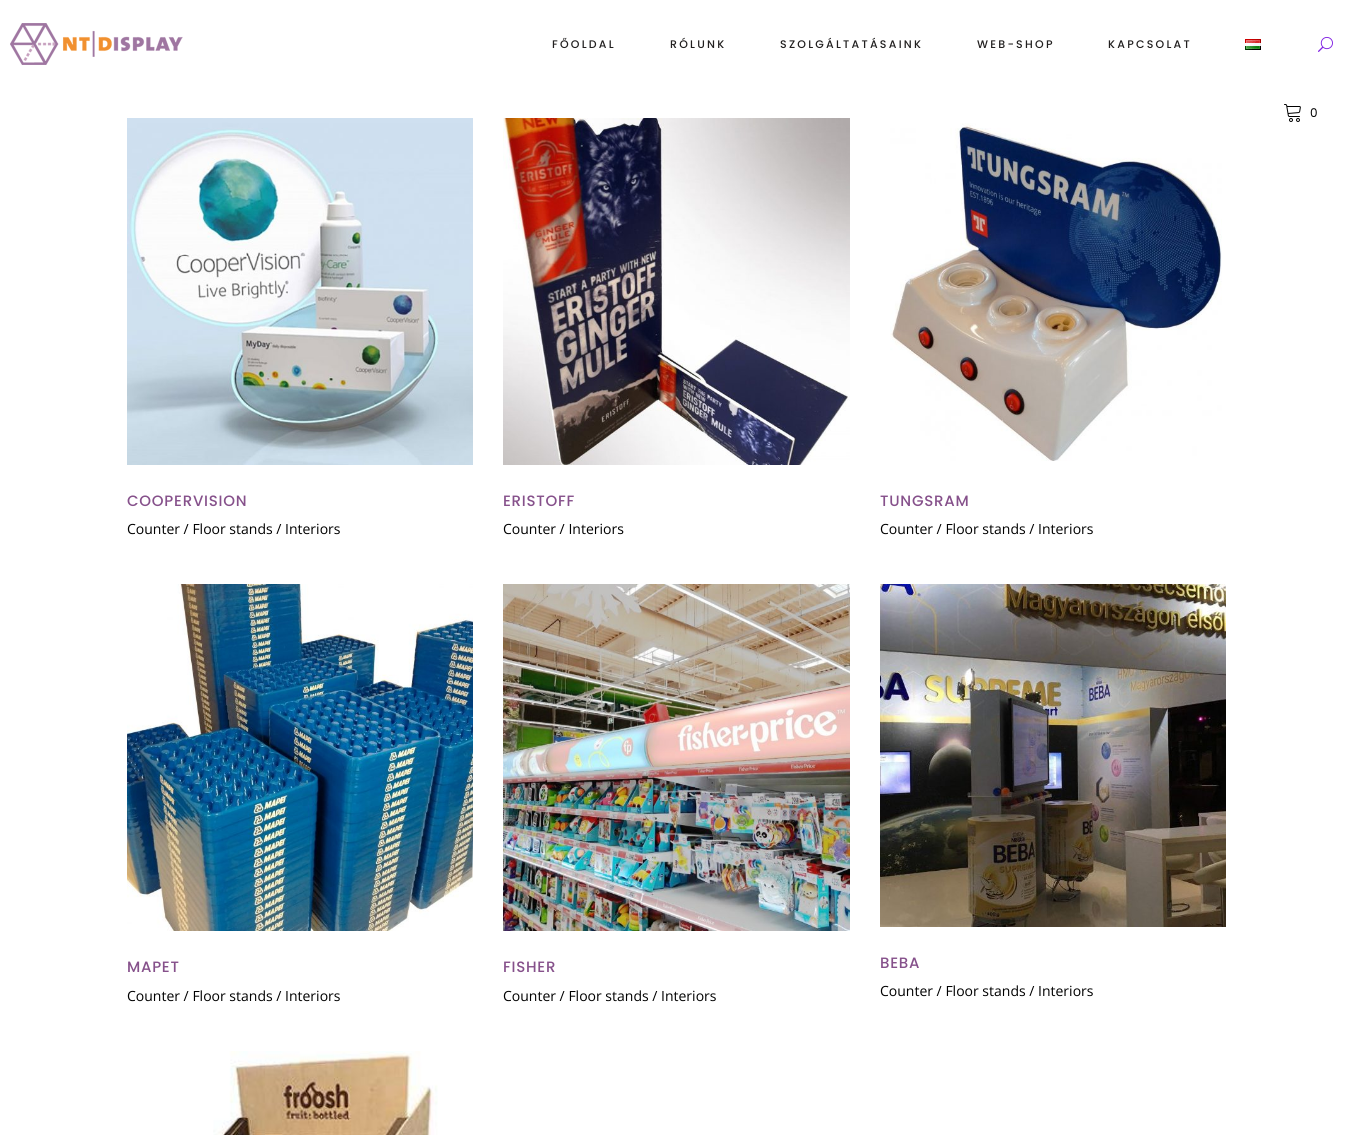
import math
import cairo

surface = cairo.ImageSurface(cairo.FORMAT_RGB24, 1353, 1135)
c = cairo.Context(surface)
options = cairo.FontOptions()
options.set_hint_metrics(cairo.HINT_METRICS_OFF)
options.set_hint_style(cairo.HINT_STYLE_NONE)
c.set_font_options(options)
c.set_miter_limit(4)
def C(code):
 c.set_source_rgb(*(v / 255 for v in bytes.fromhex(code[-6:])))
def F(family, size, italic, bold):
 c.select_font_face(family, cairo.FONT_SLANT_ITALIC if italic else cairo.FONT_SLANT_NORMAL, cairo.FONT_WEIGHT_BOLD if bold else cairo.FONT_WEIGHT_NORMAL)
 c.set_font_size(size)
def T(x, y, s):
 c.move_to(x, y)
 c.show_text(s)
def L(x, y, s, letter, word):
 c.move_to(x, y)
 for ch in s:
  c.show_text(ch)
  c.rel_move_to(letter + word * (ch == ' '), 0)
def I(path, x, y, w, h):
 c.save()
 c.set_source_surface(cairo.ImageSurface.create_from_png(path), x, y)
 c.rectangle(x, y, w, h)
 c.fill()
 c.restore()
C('ffffff')
c.paint()
I('1.png',10,23,173,42)
F('Poppins Medium',11,0,0)
C('211f1f')
L(552,48,'FŐOLDAL',2.25,0)
L(670,48,'RÓLUNK',2.25,0)
L(780,48,'SZOLGÁLTATÁSAINK',2.25,0)
L(977,48,'WEB-SHOP',2.25,0)
L(1108,48,'KAPCSOLAT',2.25,0)
I('2.png',1245,39,16,11)
I('3.png',1318,36,15,16)
I('4.png',1284,104,17,18)
F('Poppins',12,0,0)
C('000000')
L(1310,117,'0',1,0)
I('5.png',127,118,346,347)
F('Poppins Medium',15,0,0)
C('86518b')
L(127,506,'COOPERVISION',.75,0)
F('Open Sans',14,0,0)
C('000000')
T(127,534,'Counter / Floor stands / Interiors')
I('6.png',503,118,347,347)
F('Poppins Medium',15,0,0)
C('86518b')
L(503,506,'ERISTOFF',.75,0)
F('Open Sans',14,0,0)
C('000000')
T(503,534,'Counter / Interiors')
I('7.png',890,123,332,338)
F('Poppins Medium',15,0,0)
C('86518b')
L(880,506,'TUNGSRAM',.75,0)
F('Open Sans',14,0,0)
C('000000')
T(880,534,'Counter / Floor stands / Interiors')
I('8.png',127,584,346,347)
F('Poppins Medium',15,0,0)
C('86518b')
L(127,972,'MAPET',.75,0)
F('Open Sans',14,0,0)
C('000000')
T(127,1001,'Counter / Floor stands / Interiors')
I('9.png',503,584,347,347)
F('Poppins Medium',15,0,0)
C('86518b')
L(503,972,'FISHER',.75,0)
F('Open Sans',14,0,0)
C('000000')
T(503,1001,'Counter / Floor stands / Interiors')
I('10.png',880,584,346,343)
F('Poppins Medium',15,0,0)
C('86518b')
L(880,968,'BEBA',.75,0)
F('Open Sans',14,0,0)
C('000000')
T(880,996,'Counter / Floor stands / Interiors')
I('11.png',213,1051,225,84)
surface.write_to_png('o.png')
